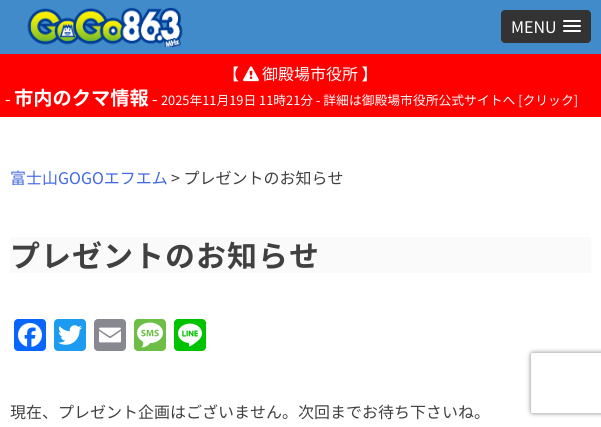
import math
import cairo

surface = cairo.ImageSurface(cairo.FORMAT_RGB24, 601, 427)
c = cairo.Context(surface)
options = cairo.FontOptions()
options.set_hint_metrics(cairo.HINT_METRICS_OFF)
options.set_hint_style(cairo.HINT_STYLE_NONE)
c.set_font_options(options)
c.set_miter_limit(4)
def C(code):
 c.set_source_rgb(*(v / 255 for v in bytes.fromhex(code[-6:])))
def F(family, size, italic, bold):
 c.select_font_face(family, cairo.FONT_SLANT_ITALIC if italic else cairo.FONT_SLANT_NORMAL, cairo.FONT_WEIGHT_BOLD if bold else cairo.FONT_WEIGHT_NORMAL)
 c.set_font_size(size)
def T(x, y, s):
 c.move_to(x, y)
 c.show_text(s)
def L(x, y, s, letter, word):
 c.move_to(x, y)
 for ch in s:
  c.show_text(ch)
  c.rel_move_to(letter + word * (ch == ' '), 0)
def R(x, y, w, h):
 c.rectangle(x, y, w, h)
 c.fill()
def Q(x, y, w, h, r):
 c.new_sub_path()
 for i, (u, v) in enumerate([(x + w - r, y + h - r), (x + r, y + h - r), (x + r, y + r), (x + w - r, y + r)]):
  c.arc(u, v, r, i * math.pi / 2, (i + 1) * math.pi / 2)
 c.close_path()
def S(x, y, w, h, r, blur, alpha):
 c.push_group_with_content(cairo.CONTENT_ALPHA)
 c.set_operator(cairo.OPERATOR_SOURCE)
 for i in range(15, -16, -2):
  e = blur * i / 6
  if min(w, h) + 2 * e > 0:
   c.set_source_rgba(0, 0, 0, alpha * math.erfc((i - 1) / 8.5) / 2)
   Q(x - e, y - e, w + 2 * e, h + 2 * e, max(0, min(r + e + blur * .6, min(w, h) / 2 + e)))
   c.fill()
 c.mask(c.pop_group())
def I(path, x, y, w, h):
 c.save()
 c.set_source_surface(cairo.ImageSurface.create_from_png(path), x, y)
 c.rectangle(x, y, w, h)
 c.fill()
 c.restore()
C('ffffff')
c.paint()
C('428bca')
R(0,0,601,54)
I('1.png',27,7,156,40)
C('333333')
Q(501,10,90,33,4)
c.fill()
F('Noto Sans JP',16,0,0)
C('ffffff')
T(511,33,'MENU')
Q(563,20,18,2,1)
c.fill()
Q(563,25,18,2,1)
c.fill()
Q(563,30,18,2,1)
c.fill()
C('ff0000')
R(0,54,601,63)
C('ffffff')
T(223,80,'【')
I('2.png',243,66,16,16)
T(262,80,'御殿場市役所 】')
T(5,105,'-')
F('Noto Sans JP',19.25,0,1)
T(14,105,'市内のクマ情報')
F('Noto Sans JP',16,0,0)
T(152,105,'-')
F('Noto Sans JP',12.8,0,0)
T(161,105,'2025年11月19日 11時21分 - 詳細は御殿場市役所公式サイトへ [クリック]')
F('Noto Sans JP',16,0,0)
C('4169e1')
T(10,184,'富士山GOGOエフエム')
C('404040')
T(171,184,'> プレゼントのお知らせ')
C('fafafa')
R(10,237,581,36)
F('Noto Sans JP',30,0,1)
C('404040')
L(10,267,'プレゼントのお知らせ',1,0)
C('0866ff')
Q(14,319,32,32,4)
c.fill()
I('3.png',18,323,24,24)
C('1d9bf0')
Q(54,319,32,32,4)
c.fill()
I('4.png',58,325,24,20)
C('888990')
Q(94,319,32,32,4)
c.fill()
I('5.png',99,327,22,16)
C('6cbe45')
Q(134,319,32,32,4)
c.fill()
I('6.png',137,322,26,26)
C('00c300')
Q(174,319,32,32,4)
c.fill()
I('7.png',178,323,24,24)
F('Noto Sans JP',16,0,0)
C('404040')
T(10,418,'現在、プレゼント企画はございません。次回までお待ち下さいね。')
c.save()
c.set_fill_rule(cairo.FILL_RULE_EVEN_ODD)
c.new_path()
c.move_to(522,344)
c.line_to(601,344)
c.line_to(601,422)
c.line_to(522,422)
c.close_path()
c.move_to(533,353)
c.line_to(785,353)
c.curve_to(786,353,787,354,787,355)
c.line_to(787,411)
c.curve_to(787,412,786,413,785,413)
c.line_to(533,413)
c.curve_to(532,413,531,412,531,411)
c.line_to(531,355)
c.curve_to(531,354,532,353,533,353)
c.close_path()
c.clip()
C('808080')
S(531,353,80,60,2,2.5,1)
c.restore()
surface.write_to_png('o.png')
